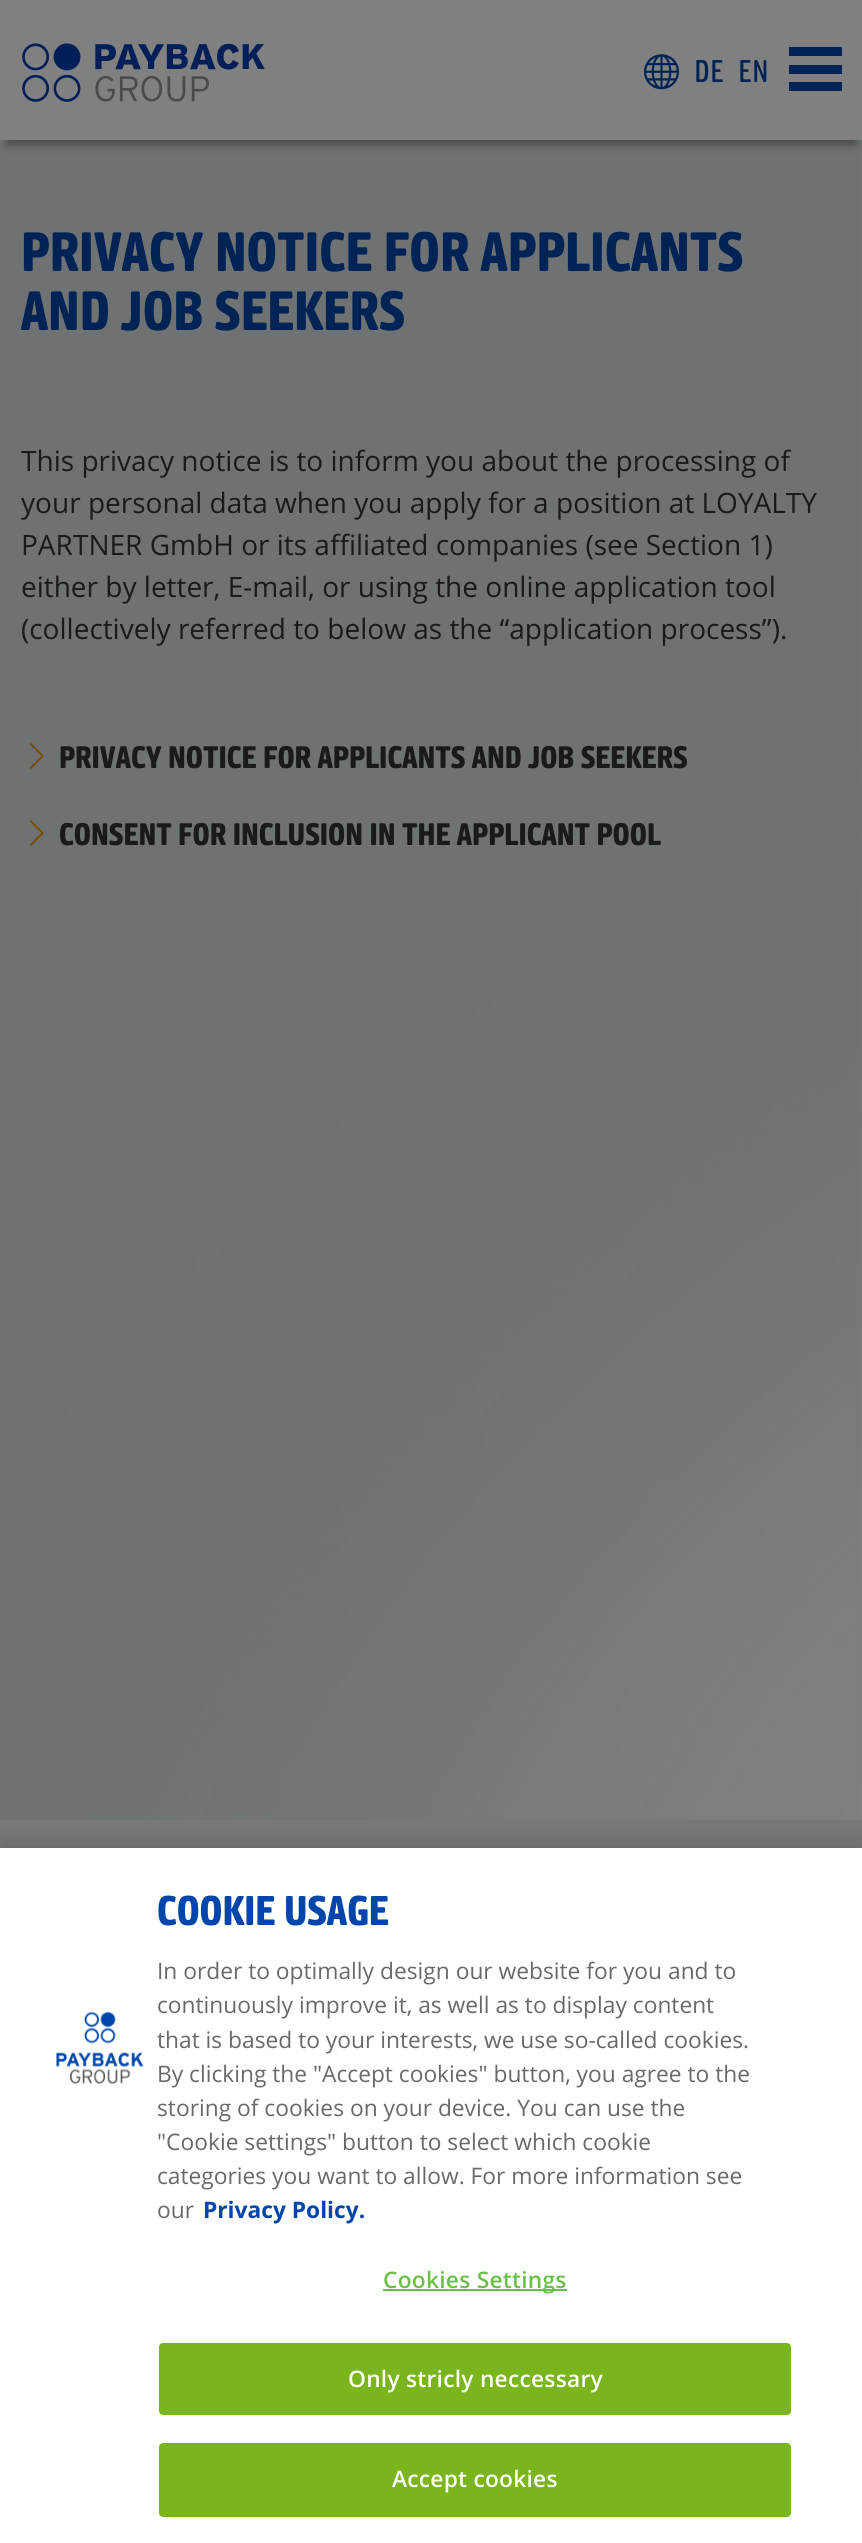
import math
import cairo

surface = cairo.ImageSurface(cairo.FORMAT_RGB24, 862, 2543)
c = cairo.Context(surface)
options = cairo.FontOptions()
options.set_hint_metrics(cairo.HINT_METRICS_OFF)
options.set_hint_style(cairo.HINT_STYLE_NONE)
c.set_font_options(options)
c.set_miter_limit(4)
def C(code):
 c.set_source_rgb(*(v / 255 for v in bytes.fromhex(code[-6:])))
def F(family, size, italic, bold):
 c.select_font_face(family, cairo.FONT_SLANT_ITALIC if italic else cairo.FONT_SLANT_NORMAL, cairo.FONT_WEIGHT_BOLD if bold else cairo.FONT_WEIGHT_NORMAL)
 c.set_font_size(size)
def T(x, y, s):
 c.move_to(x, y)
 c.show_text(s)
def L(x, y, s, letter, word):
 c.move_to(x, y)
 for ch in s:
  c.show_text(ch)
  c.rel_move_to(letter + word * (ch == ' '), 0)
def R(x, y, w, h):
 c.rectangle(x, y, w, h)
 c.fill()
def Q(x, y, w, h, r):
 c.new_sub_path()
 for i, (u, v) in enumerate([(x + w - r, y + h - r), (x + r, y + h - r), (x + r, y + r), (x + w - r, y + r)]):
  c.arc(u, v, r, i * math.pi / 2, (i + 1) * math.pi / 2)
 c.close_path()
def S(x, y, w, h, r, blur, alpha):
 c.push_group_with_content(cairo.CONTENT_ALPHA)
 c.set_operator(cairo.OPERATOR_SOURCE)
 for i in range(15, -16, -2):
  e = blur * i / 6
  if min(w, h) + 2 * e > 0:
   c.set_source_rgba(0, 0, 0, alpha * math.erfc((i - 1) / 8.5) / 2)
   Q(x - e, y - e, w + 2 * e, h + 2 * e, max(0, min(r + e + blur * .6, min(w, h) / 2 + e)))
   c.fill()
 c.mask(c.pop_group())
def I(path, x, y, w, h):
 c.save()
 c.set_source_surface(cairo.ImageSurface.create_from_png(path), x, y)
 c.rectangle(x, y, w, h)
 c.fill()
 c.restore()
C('ffffff')
c.paint()
I('1.png',0,140,862,1680)
C('000000')
S(7,18,849,126,0,5,.4)
C('808080')
R(0,0,862,140)
I('2.png',22,43,243,59)
I('3.png',644,54,35,36)
F('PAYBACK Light',31.5,0,0)
C('002355')
T(694,82,'DE')
T(738,82,'EN')
R(789,47,53,9)
R(789,65,53,9)
R(789,82,53,9)
F('PAYBACK',56,0,1)
T(21,271,'PRIVACY NOTICE FOR APPLICANTS')
T(21,330,'AND JOB SEEKERS')
F('Open Sans',28,0,0)
C('1a1a1a')
T(21,471,'This privacy notice is to inform you about the processing of')
T(21,513,'your personal data when you apply for a position at LOYALTY')
T(21,555,'PARTNER GmbH or its affiliated companies (see Section 1)')
T(21,597,'either by letter, E-mail, or using the online application tool')
T(21,639,'(collectively referred to below as the “application process”).')
I('4.png',29,743,15,26)
F('PAYBACK',31.5,0,1)
T(59,768,'PRIVACY NOTICE FOR APPLICANTS AND JOB SEEKERS')
I('4.png',29,820,15,26)
T(59,845,'CONSENT FOR INCLUSION IN THE APPLICANT POOL')
C('797979')
R(0,1820,862,28)
C('000000')
S(0,1848,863,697,0,16,.2)
C('ffffff')
R(0,1848,862,695)
I('5.png',56,2011,88,73)
F('PAYBACK',42,0,1)
C('0046aa')
T(157,1925,'COOKIE USAGE')
F('Open Sans',22.75,0,0)
C('696969')
T(157,1979,'In order to optimally design our website for you and to')
T(157,2013,'continuously improve it, as well as to display content')
T(157,2048,'that is based to your interests, we use so-called cookies.')
T(157,2082,'By clicking the "Accept cookies" button, you agree to the')
T(157,2116,'storing of cookies on your device. You can use the')
T(157,2150,'"Cookie settings" button to select which cookie')
T(157,2184,'categories you want to allow. For more information see')
T(157,2218,'our')
F('Open Sans',22.75,0,1)
C('0046aa')
T(203,2218,'Privacy Policy.')
C('6cc04a')
R(383,2289,184,2)
F('Open Sans SemiBold',22.75,0,0)
L(383,2288,'Cookies Settings',.25,0)
C('7ab51d')
Q(160,2344,630,70,3)
c.fill_preserve()
c.stroke()
C('ffffff')
L(348,2387,'Only stricly neccessary',.25,0)
C('7ab51d')
Q(160,2444,630,72,3)
c.fill_preserve()
c.stroke()
C('ffffff')
L(392,2487,'Accept cookies',.25,0)
surface.write_to_png('o.png')
